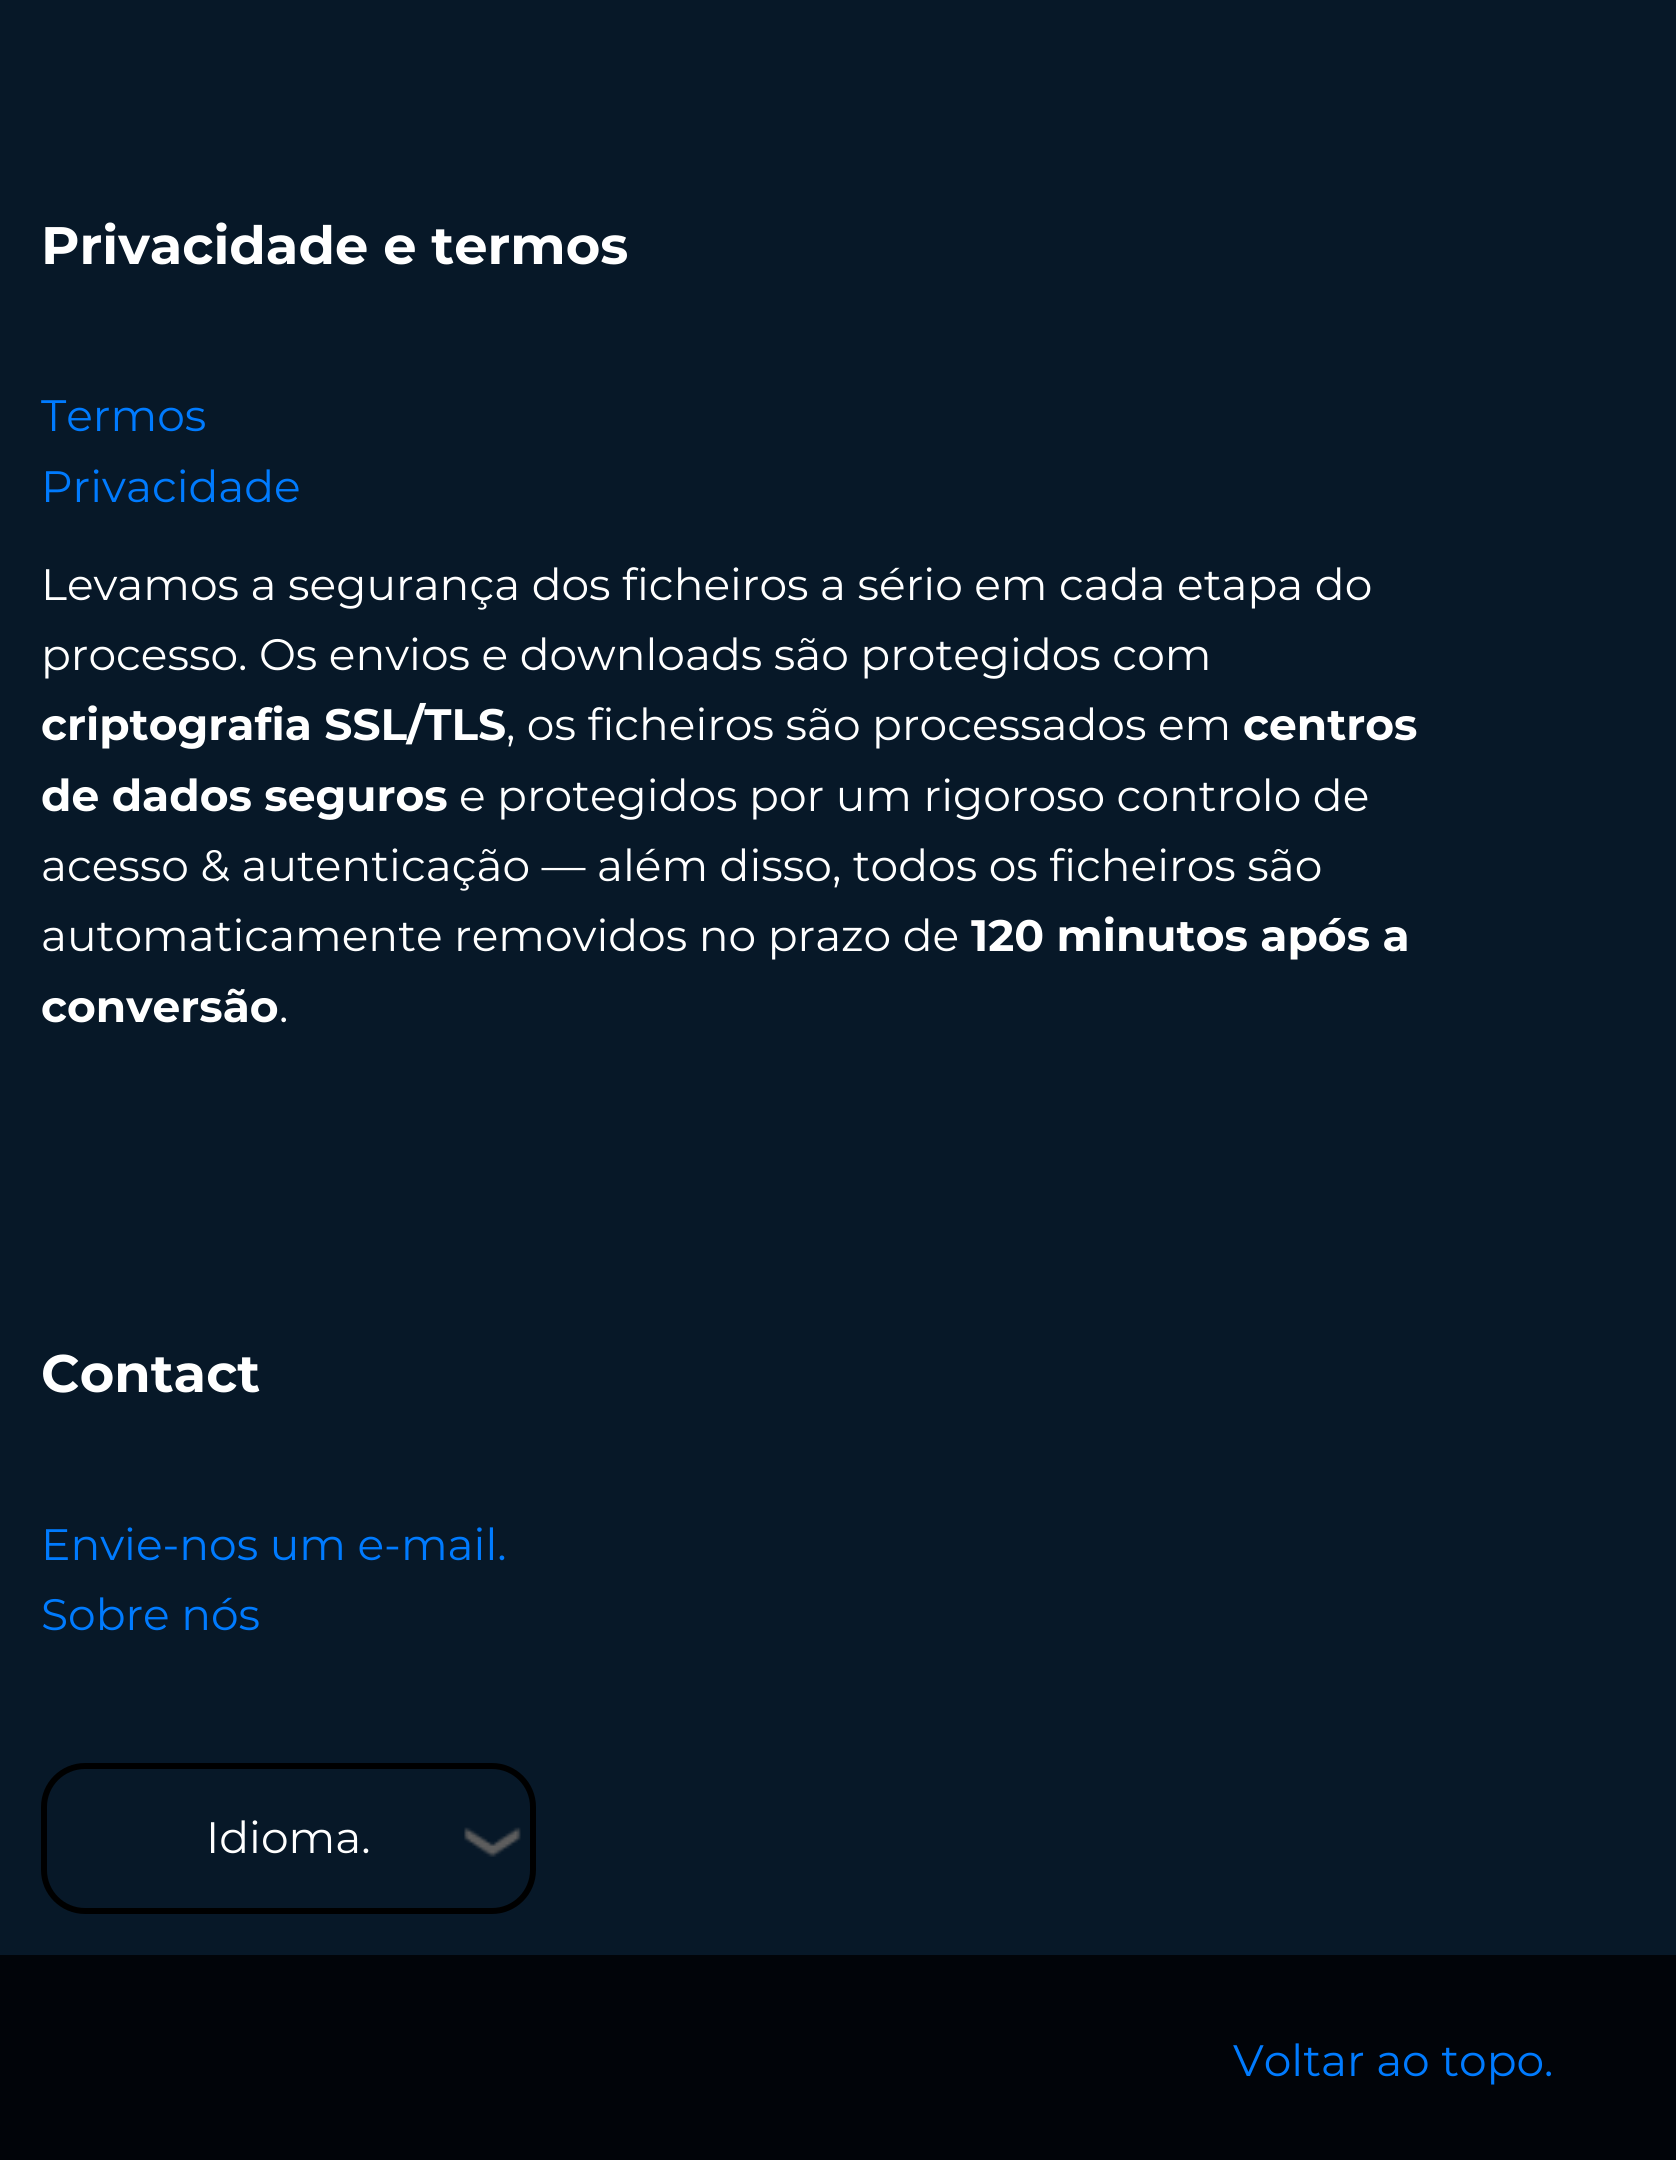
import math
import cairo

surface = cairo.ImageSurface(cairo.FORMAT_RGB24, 1676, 2160)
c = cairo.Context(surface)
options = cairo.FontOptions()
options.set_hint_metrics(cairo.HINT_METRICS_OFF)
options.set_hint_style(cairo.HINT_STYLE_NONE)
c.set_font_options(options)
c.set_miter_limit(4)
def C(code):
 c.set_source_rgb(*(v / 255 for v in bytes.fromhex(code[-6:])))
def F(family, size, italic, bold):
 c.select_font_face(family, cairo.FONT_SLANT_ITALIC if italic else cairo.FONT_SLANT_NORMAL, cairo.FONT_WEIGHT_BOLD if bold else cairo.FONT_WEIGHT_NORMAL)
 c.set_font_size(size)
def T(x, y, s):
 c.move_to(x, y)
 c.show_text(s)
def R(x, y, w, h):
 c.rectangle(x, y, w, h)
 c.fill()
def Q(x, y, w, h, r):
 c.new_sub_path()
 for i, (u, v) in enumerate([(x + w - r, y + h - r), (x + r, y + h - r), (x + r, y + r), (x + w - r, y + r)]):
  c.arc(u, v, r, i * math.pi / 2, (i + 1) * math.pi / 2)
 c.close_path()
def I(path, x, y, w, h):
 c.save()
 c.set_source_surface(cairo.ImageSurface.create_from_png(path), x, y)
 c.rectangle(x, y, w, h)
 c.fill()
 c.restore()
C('071828')
c.paint()
F('Montserrat',52.75,0,1)
C('ffffff')
T(41,264,'Privacidade e termos')
F('Montserrat',44,0,0)
C('007bff')
T(41,431,'Termos')
T(41,502,'Privacidade')
C('ffffff')
T(41,600,'Levamos a segurança dos ficheiros a sério em cada etapa do')
T(41,670,'processo. Os envios e downloads são protegidos com')
F('Montserrat',44,0,1)
T(41,740,'criptografia SSL/TLS')
F('Montserrat',44,0,0)
T(506,740,', os ficheiros são processados em')
F('Montserrat',44,0,1)
T(1243,740,'centros')
T(41,811,'de dados seguros')
F('Montserrat',44,0,0)
T(459,811,'e protegidos por um rigoroso controlo de')
T(41,881,'acesso & autenticação — além disso, todos os ficheiros são')
T(41,951,'automaticamente removidos no prazo de')
F('Montserrat',44,0,1)
T(971,951,'120 minutos após a')
T(41,1022,'conversão')
F('Montserrat',44,0,0)
T(279,1022,'.')
F('Montserrat',52.75,0,1)
T(41,1392,'Contact')
F('Montserrat',44,0,0)
C('007bff')
T(41,1560,'Envie-nos um e-mail.')
T(41,1630,'Sobre nós')
I('1.png',464,1827,57,30)
Q(44,1766,489,145,41)
C('000000')
c.set_line_width(6)
c.stroke()
C('ffffff')
T(206,1853,'Idioma.')
C('010409')
R(0,1955,1676,205)
C('007bff')
T(1233,2076,'Voltar ao topo.')
surface.write_to_png('o.png')
